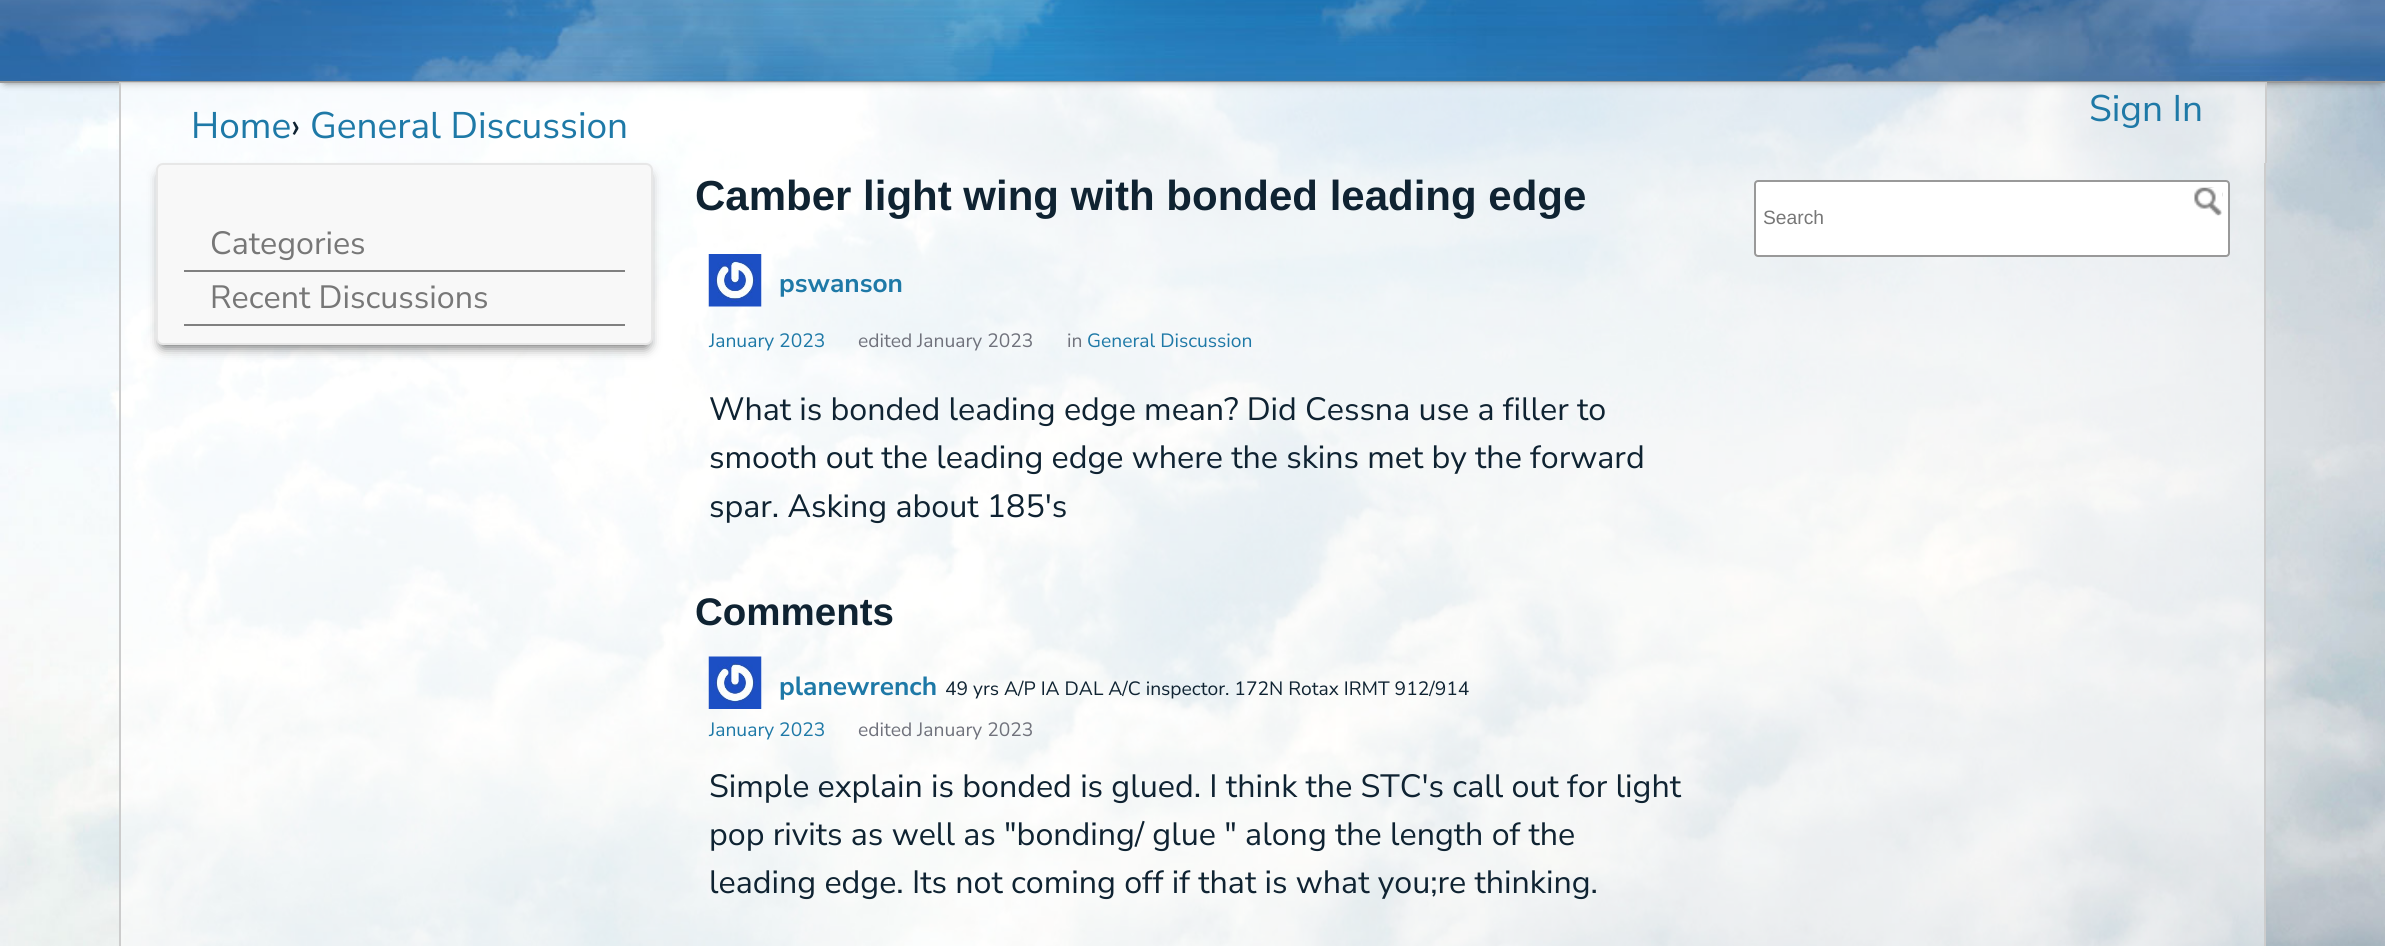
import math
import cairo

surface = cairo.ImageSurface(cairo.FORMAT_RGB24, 2385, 946)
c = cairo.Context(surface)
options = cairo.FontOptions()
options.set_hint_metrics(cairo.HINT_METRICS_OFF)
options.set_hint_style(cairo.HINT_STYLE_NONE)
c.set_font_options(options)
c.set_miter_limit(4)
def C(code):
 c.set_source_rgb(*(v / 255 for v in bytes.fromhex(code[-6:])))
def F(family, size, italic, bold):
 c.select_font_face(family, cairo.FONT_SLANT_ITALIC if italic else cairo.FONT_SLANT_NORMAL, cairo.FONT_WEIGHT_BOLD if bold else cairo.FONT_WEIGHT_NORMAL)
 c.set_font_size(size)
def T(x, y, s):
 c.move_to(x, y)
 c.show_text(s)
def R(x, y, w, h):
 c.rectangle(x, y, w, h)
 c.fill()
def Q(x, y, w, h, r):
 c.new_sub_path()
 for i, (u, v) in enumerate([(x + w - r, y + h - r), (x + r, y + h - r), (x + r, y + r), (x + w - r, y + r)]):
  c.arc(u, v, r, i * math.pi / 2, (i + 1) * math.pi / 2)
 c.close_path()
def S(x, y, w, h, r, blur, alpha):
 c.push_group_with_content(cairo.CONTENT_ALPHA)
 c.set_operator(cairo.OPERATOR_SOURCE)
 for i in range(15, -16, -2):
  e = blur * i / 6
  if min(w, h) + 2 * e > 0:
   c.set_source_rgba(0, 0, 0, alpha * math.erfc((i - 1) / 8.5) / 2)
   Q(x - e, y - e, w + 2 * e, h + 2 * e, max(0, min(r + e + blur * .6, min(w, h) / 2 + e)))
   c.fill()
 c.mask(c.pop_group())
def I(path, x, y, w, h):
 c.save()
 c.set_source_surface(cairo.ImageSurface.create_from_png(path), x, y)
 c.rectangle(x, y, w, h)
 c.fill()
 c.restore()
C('ffffff')
c.paint()
I('1.png',0,83,2385,863)
C('444444')
S(5,-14,2375,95,0,4.5,1)
I('2.png',0,0,2385,81)
C('999999')
R(0,81,2385,2)
c.set_source_rgba(1,1,1,0.5)
R(121,82,2144,81)
C('cccccc')
R(2265,82,2,81)
R(119,82,2,81)
F('Nunito Sans',37,0,0)
C('1e79a7')
T(191,138,'Home')
C('0f2332')
T(291,138,'›')
C('1e79a7')
T(310,138,'General Discussion')
T(2089,121,'Sign In')
c.set_source_rgba(1,1,1,0.5)
R(121,163,2143,783)
C('cccccc')
c.set_fill_rule(cairo.FILL_RULE_EVEN_ODD)
c.new_path()
c.move_to(119,163)
c.line_to(2266,163)
c.line_to(2266,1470)
c.curve_to(2266,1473,2264,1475,2261,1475)
c.line_to(124,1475)
c.curve_to(121,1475,119,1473,119,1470)
c.close_path()
c.move_to(121,163)
c.line_to(2264,163)
c.line_to(2264,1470)
c.curve_to(2264,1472,2263,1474,2261,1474)
c.line_to(124,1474)
c.curve_to(122,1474,121,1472,121,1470)
c.close_path()
c.fill()
C('666666')
S(161,175,487,172,2,6,1)
C('f8f8f8')
Q(157,164,495,180,6)
c.fill_preserve()
C('e7e7e7')
c.stroke()
C('808080')
R(184,270,441,2)
F('Nunito Sans',32.2,0,0)
C('777777')
T(210,254,'Categories')
C('808080')
R(184,324,441,2)
C('777777')
T(210,308,'Recent Discussions')
F('Liberation Sans',42,0,1)
C('0f2332')
T(695,210,'Camber light wing with bonded leading edge')
I('3.png',708,254,54,53)
F('Nunito Sans',26.25,0,1)
C('1e79a7')
T(779,292,'pswanson')
F('Nunito Sans',19.25,0,0)
T(709,347,'January 2023')
C('70727c')
T(858,347,'edited January 2023')
T(1067,347,'in')
C('1e79a7')
T(1087,347,'General Discussion')
F('Nunito Sans',32.2,0,0)
C('0f2332')
T(709,420,'What is bonded leading edge mean? Did Cessna use a filler to')
T(709,468,'smooth out the leading edge where the skins met by the forward')
T(709,517,'spar. Asking about 185\'s')
F('Liberation Sans',38.5,0,1)
T(695,625,'Comments')
I('4.png',708,656,54,53)
F('Nunito Sans',26.25,0,1)
C('1e79a7')
T(779,695,'planewrench')
F('Nunito Sans',19.25,0,0)
C('0f2332')
T(945,695,'49 yrs A/P IA DAL A/C inspector. 172N Rotax IRMT 912/914')
C('1e79a7')
T(709,736,'January 2023')
C('70727c')
T(858,736,'edited January 2023')
F('Nunito Sans',32.2,0,0)
C('0f2332')
T(709,797,'Simple explain is bonded is glued. I think the STC\'s call out for light')
T(709,845,'pop rivits as well as "bonding/ glue " along the length of the')
T(709,893,'leading edge. Its not coming off if that is what you;re thinking.')
C('ffffff')
Q(1754,180,476,77,4)
c.fill()
Q(1755,181,474,75,3)
c.set_source_rgba(0,0,0,0.4)
c.stroke()
I('5.png',2194,187,29,29)
F('Liberation Sans',19.25,0,0)
C('777777')
T(1763,224,'Search')
surface.write_to_png('o.png')
